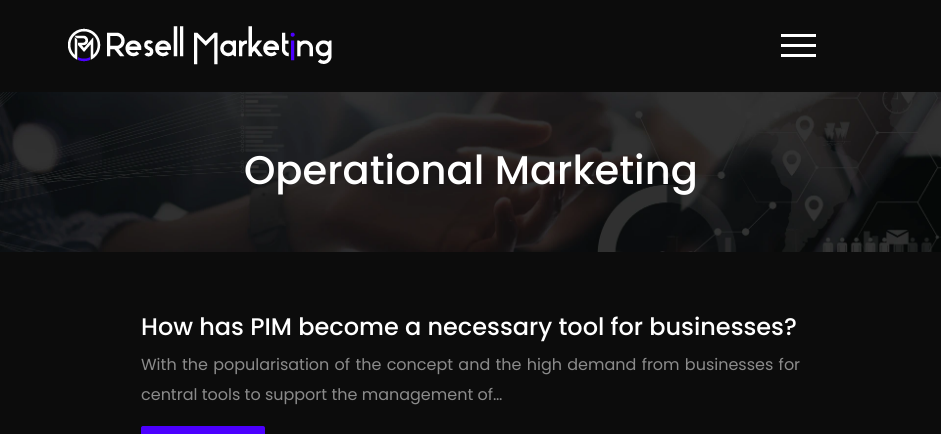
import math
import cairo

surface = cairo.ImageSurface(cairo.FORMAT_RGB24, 941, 434)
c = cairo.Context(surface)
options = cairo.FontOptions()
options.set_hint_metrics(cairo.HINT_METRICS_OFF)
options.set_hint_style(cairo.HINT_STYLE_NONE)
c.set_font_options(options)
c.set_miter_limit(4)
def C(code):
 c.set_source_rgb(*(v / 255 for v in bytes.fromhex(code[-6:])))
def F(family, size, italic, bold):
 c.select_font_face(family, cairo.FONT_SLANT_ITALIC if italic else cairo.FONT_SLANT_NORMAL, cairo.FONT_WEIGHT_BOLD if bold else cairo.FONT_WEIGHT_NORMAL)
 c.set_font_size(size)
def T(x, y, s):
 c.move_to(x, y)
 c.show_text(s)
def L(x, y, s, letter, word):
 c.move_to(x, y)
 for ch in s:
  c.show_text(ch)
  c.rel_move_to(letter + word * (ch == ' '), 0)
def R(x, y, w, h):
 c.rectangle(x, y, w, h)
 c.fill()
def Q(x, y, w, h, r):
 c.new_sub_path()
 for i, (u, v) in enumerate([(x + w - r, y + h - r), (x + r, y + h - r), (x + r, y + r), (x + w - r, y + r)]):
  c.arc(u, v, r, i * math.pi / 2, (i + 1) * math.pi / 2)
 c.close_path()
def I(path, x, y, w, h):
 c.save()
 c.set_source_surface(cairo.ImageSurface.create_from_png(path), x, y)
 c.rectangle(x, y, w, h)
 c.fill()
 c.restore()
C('0c0c0c')
c.paint()
I('1.png',68,26,264,39)
C('ffffff')
R(781,34,35,3)
R(781,44,35,3)
R(781,54,35,3)
I('2.png',0,92,941,160)
F('Poppins Medium',40,0,0)
T(244,184,'Operational Marketing')
F('Poppins Medium',24,0,0)
T(141,335,'How has PIM become a necessary tool for businesses?')
F('Poppins',16,0,0)
C('8b8b8b')
L(141,370,'With the popularisation of the concept and the high demand from businesses for',0,1)
T(141,400,'central tools to support the management of…')
C('4c00ff')
Q(141,426,124,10,2)
c.fill()
surface.write_to_png('o.png')
